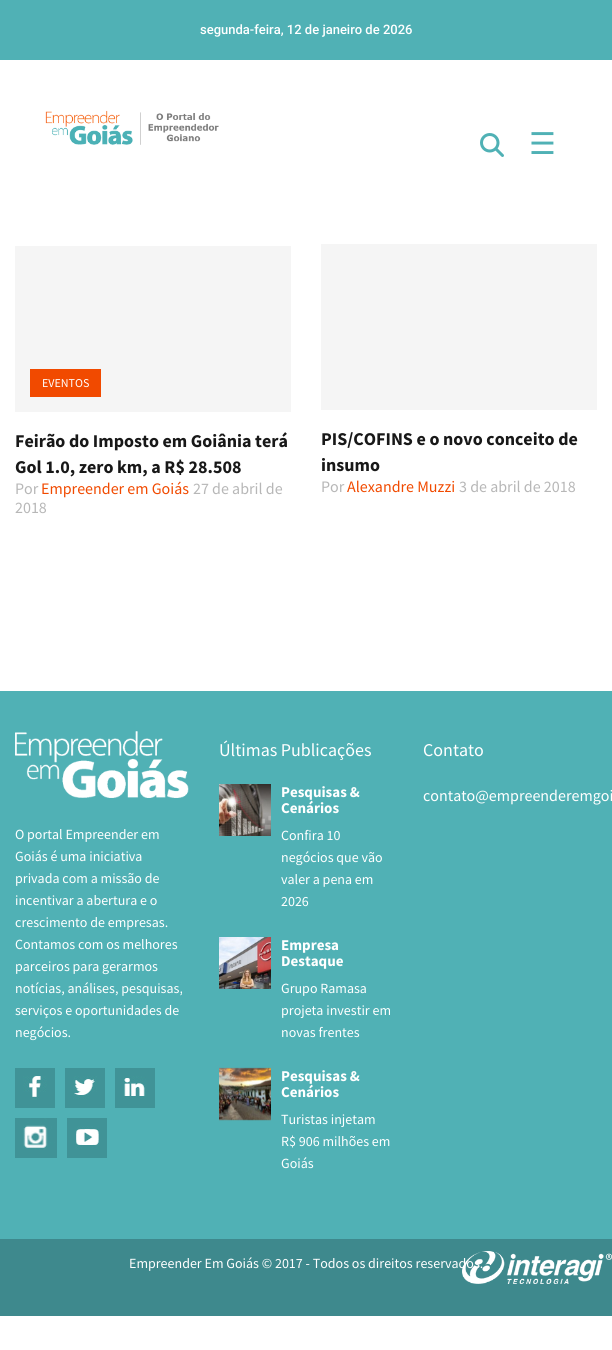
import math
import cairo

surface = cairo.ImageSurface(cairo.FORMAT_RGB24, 612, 1350)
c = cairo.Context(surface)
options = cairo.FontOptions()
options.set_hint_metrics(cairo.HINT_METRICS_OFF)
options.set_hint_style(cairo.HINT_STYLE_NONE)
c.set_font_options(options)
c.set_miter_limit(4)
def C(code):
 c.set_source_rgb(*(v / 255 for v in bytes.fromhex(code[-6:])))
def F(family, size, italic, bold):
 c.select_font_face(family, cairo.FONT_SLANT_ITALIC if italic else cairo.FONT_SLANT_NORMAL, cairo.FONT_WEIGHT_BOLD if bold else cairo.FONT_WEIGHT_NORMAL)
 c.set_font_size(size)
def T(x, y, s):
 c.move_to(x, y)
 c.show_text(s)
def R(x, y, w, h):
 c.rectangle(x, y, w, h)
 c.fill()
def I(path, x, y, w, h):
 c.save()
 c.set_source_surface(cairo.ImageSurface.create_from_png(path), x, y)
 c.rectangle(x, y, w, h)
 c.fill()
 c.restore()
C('ffffff')
c.paint()
C('50b1b5')
R(0,0,612,60)
F('Roboto Medium',13,0,0)
C('ffffff')
T(200,34,'segunda-feira, 12 de janeiro de 2026')
I('1.png',45,110,174,35)
I('2.png',480,133,24,24)
F('DejaVu Sans',30,0,0)
C('50b1b5')
T(529,154,'☰')
C('f5f5f5')
R(15,246,276,166)
C('f14a00')
R(30,369,71,28)
F('Source Sans Pro',12,0,0)
C('ffffff')
T(42,387,'EVENTOS')
F('Source Sans Pro',18,0,1)
C('181818')
T(15,447,'Feirão do Imposto em Goiânia terá')
T(15,473,'Gol 1.0, zero km, a R$ 28.508')
F('Source Sans Pro',16,0,0)
C('b7b7b7')
T(15,494,'Por')
C('f14a00')
T(41,494,'Empreender em Goiás')
C('b7b7b7')
T(193,494,'27 de abril de')
T(15,513,'2018')
C('f5f5f5')
R(321,244,276,166)
F('Source Sans Pro',18,0,1)
C('181818')
T(321,445,'PIS/COFINS e o novo conceito de')
T(321,471,'insumo')
F('Source Sans Pro',16,0,0)
C('b7b7b7')
T(321,492,'Por')
C('f14a00')
T(347,492,'Alexandre Muzzi')
C('b7b7b7')
T(459,492,'3 de abril de 2018')
C('50b1b5')
R(0,691,612,548)
F('Source Sans Pro',18,0,0)
C('ffffff')
T(219,756,'Últimas Publicações')
I('3.png',219,784,52,52)
F('Source Sans Pro',15,0,1)
T(281,797,'Pesquisas &')
T(281,813,'Cenários')
F('Source Sans Pro',14,0,0)
T(281,840,'Confira 10')
T(281,862,'negócios que vão')
T(281,884,'valer a pena em')
T(281,906,'2026')
I('4.png',219,937,52,52)
F('Source Sans Pro',15,0,1)
T(281,950,'Empresa')
T(281,966,'Destaque')
F('Source Sans Pro',14,0,0)
T(281,993,'Grupo Ramasa')
T(281,1015,'projeta investir em')
T(281,1037,'novas frentes')
I('5.png',219,1067,52,54)
F('Source Sans Pro',15,0,1)
T(281,1081,'Pesquisas &')
T(281,1097,'Cenários')
F('Source Sans Pro',14,0,0)
T(281,1124,'Turistas injetam')
T(281,1146,'R$ 906 milhões em')
T(281,1168,'Goiás')
F('Source Sans Pro',18,0,0)
T(423,756,'Contato')
F('Source Sans Pro',16,0,0)
T(423,801,'contato@empreenderemgoi')
I('6.png',15,731,174,67)
F('Source Sans Pro',14,0,0)
T(15,839,'O portal Empreender em')
T(15,861,'Goiás é uma iniciativa')
T(15,883,'privada com a missão de')
T(15,905,'incentivar a abertura e o')
T(15,927,'crescimento de empresas.')
T(15,949,'Contamos com os melhores')
T(15,971,'parceiros para gerarmos')
T(15,993,'notícias, análises, pesquisas,')
T(15,1015,'serviços e oportunidades de')
T(15,1037,'negócios.')
I('7.png',15,1068,40,40)
I('8.png',65,1068,40,40)
I('9.png',115,1068,40,40)
I('10.png',15,1118,42,40)
I('11.png',67,1118,40,40)
C('3e898d')
R(0,1239,612,77)
C('ffffff')
T(129,1268,'Empreender Em Goiás © 2017 - Todos os direitos reservados.')
I('12.png',462,1251,150,33)
surface.write_to_png('o.png')
